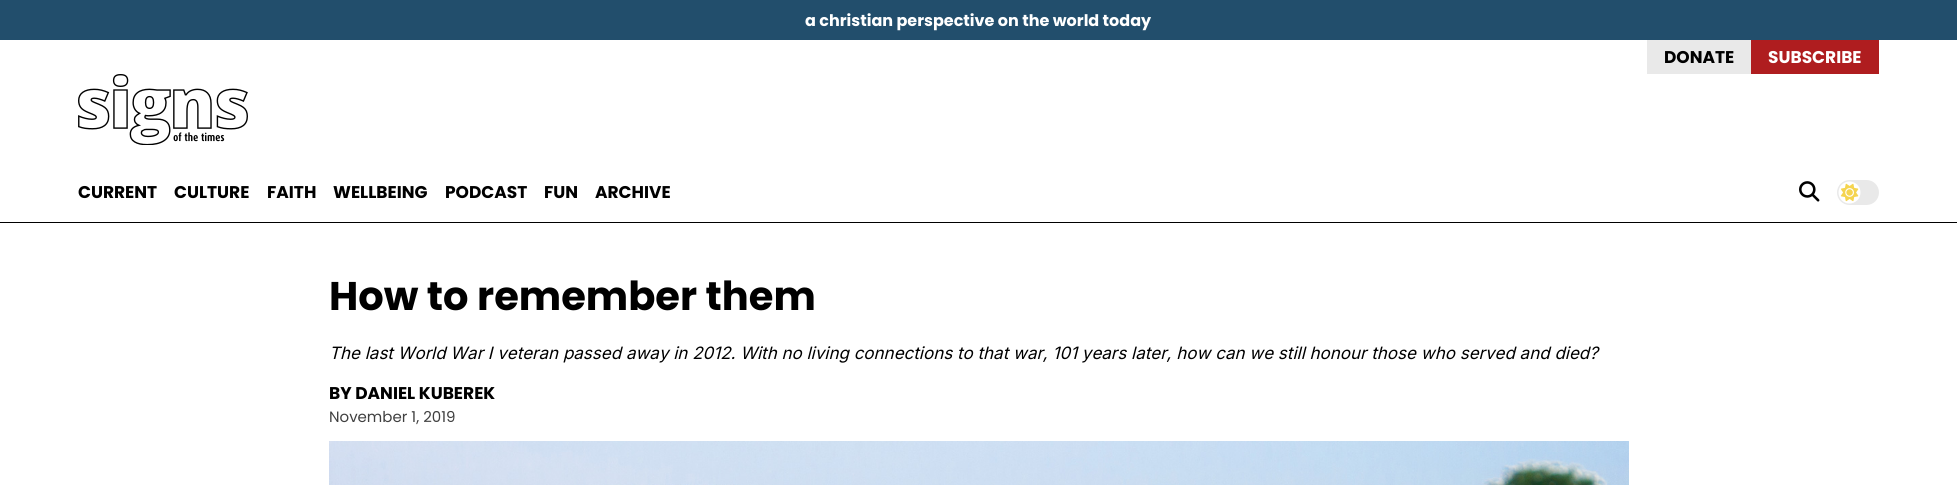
import math
import cairo

surface = cairo.ImageSurface(cairo.FORMAT_RGB24, 1957, 485)
c = cairo.Context(surface)
options = cairo.FontOptions()
options.set_hint_metrics(cairo.HINT_METRICS_OFF)
options.set_hint_style(cairo.HINT_STYLE_NONE)
c.set_font_options(options)
c.set_miter_limit(4)
def C(code):
 c.set_source_rgb(*(v / 255 for v in bytes.fromhex(code[-6:])))
def F(family, size, italic, bold):
 c.select_font_face(family, cairo.FONT_SLANT_ITALIC if italic else cairo.FONT_SLANT_NORMAL, cairo.FONT_WEIGHT_BOLD if bold else cairo.FONT_WEIGHT_NORMAL)
 c.set_font_size(size)
def T(x, y, s):
 c.move_to(x, y)
 c.show_text(s)
def R(x, y, w, h):
 c.rectangle(x, y, w, h)
 c.fill()
def I(path, x, y, w, h):
 c.save()
 c.set_source_surface(cairo.ImageSurface.create_from_png(path), x, y)
 c.rectangle(x, y, w, h)
 c.fill()
 c.restore()
C('ffffff')
c.paint()
C('224e6c')
R(0,0,1957,40)
F('Poppins',16,0,1)
C('ffffff')
T(805,26,'a christian perspective on the world today')
C('000000')
R(0,222,1957,1)
C('e9e9e9')
R(1647,40,104,34)
F('Poppins',17,0,1)
C('000000')
T(1664,63,'DONATE')
C('af1d1f')
R(1751,40,128,34)
C('ffffff')
T(1768,63,'SUBSCRIBE')
I('1.png',78,74,170,71)
C('000000')
T(78,198,'CURRENT')
T(174,198,'CULTURE')
T(267,198,'FAITH')
T(333,198,'WELLBEING')
T(445,198,'PODCAST')
T(544,198,'FUN')
T(595,198,'ARCHIVE')
I('2.png',1799,181,21,21)
I('3.png',1837,180,42,25)
F('Poppins',40,0,1)
T(329,310,'How to remember them')
F('Inter',17,1,0)
T(329,359,'The last World War I veteran passed away in 2012. With no living connections to that war, 101 years later, how can we still honour those who served and died?')
F('Poppins',17,0,1)
T(329,399,'BY DANIEL KUBEREK')
F('Poppins',15,0,0)
C('404040')
T(329,422,'November 1, 2019')
I('4.png',329,441,1300,44)
surface.write_to_png('o.png')
